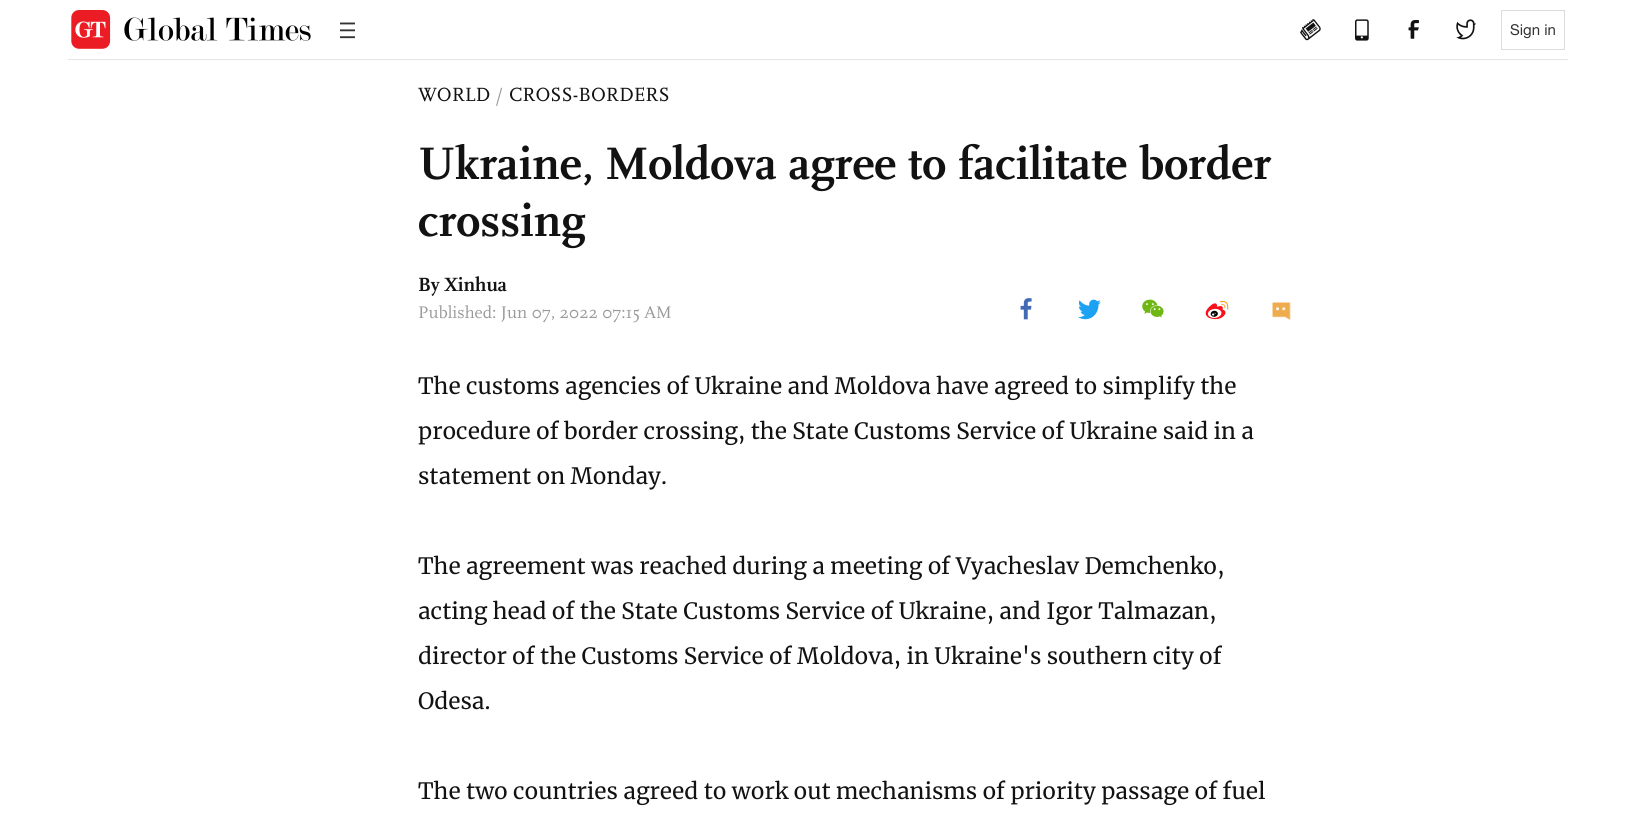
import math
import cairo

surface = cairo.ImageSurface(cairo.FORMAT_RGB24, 1633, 826)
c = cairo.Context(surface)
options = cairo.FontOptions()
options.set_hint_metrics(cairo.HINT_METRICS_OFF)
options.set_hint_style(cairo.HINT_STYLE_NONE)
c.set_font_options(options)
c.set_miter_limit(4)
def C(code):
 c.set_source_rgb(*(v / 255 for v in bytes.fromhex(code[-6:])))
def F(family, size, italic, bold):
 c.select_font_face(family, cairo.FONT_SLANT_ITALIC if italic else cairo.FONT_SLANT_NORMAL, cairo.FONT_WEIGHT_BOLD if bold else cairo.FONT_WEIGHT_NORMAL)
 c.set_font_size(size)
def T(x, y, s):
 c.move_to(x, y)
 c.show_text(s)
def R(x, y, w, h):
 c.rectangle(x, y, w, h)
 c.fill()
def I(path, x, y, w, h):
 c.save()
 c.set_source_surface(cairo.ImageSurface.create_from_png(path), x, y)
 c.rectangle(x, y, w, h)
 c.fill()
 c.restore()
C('ffffff')
c.paint()
C('e6e6e6')
R(68,59,1500,1)
I('1.png',71,10,240,39)
I('2.png',340,22,15,17)
I('3.png',1300,18,21,23)
I('4.png',1355,19,14,22)
I('5.png',1408,20,11,19)
I('6.png',1456,19,21,21)
c.rectangle(1501.5,10.5,63,39)
C('dcdcdc')
c.set_line_width(1)
c.stroke()
F('Helvetica Neue',15,0,0)
C('333333')
T(1510,35,'Sign in')
F('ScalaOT',20,0,0)
C('121212')
T(418,101,'WORLD')
C('999999')
T(495,101,'/')
C('121212')
T(509,101,'CROSS-BORDERS')
F('ScalaOT',47.5,0,1)
T(418,179,'Ukraine, Moldova agree to facilitate border')
T(418,236,'crossing')
F('ScalaOT',20,0,1)
T(418,291,'By Xinhua')
F('ScalaOT',17.5,0,0)
C('999999')
T(418,318,'Published: Jun 07, 2022 07:15 AM')
I('7.png',1020,298,12,22)
I('8.png',1078,299,23,21)
I('9.png',1142,299,22,19)
I('10.png',1205,300,24,20)
I('11.png',1272,302,19,18)
F('Merriweather',22.5,0,0)
C('121212')
T(418,394,'The customs agencies of Ukraine and Moldova have agreed to simplify the')
T(418,439,'procedure of border crossing, the State Customs Service of Ukraine said in a')
T(418,484,'statement on Monday.')
T(418,574,'The agreement was reached during a meeting of Vyacheslav Demchenko,')
T(418,619,'acting head of the State Customs Service of Ukraine, and Igor Talmazan,')
T(418,664,'director of the Customs Service of Moldova, in Ukraine\'s southern city of')
T(418,709,'Odesa.')
T(418,799,'The two countries agreed to work out mechanisms of priority passage of fuel')
surface.write_to_png('o.png')
